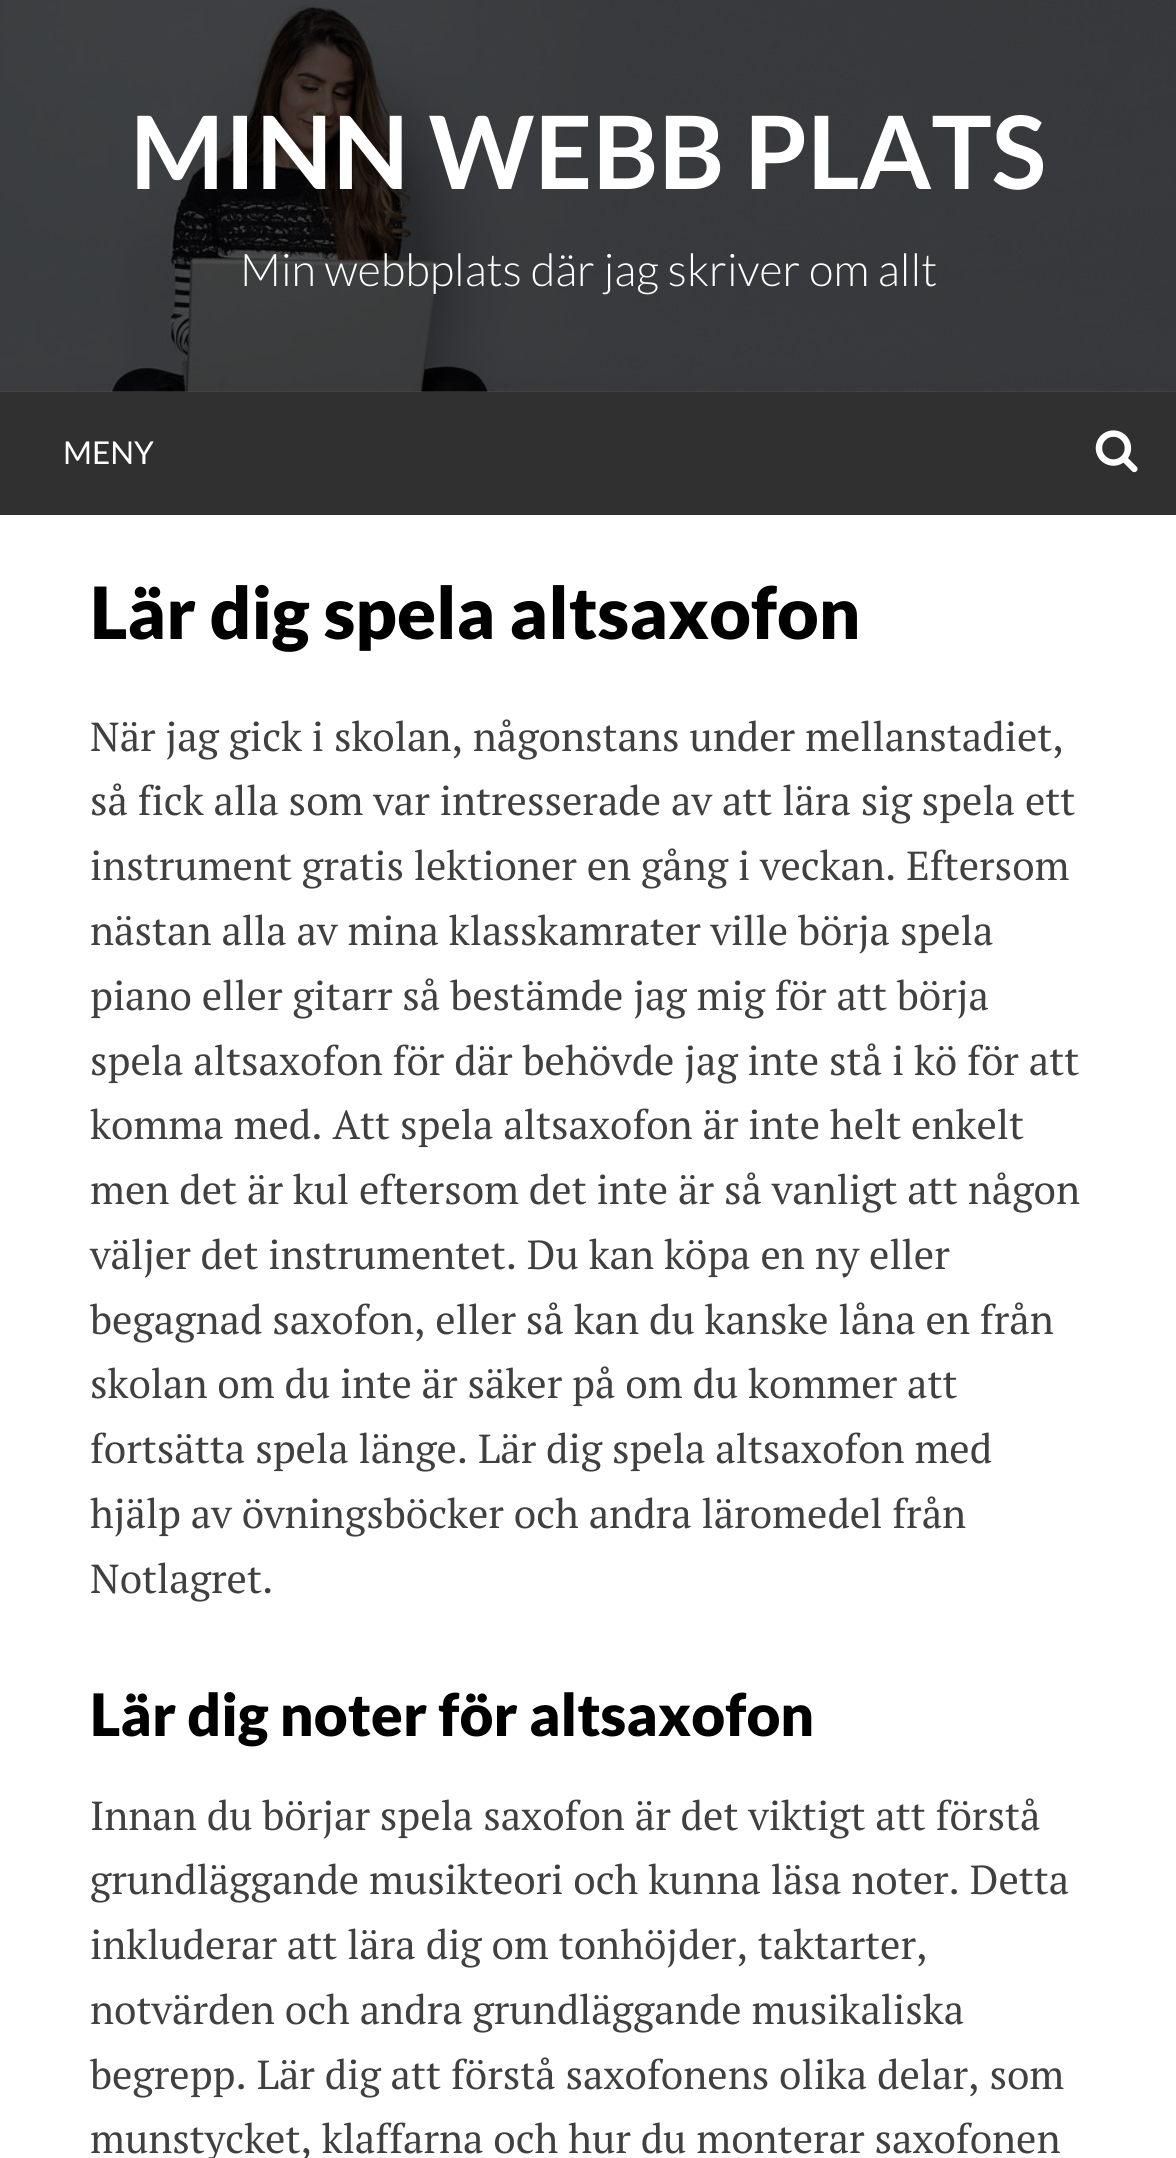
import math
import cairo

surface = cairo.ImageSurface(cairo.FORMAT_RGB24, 1176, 2158)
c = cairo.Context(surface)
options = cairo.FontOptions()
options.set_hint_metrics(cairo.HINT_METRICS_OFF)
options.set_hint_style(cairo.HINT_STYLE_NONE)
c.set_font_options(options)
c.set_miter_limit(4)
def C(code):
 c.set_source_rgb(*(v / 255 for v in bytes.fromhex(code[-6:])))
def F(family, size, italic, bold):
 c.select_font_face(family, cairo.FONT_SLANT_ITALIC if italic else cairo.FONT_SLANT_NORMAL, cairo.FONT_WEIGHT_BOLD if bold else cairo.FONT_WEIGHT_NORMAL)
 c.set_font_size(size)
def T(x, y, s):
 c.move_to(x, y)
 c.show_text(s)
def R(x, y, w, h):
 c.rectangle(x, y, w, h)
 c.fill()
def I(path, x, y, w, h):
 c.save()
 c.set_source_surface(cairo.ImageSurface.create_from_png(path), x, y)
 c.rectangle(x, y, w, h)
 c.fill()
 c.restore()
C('ffffff')
c.paint()
I('1.png',0,391,1176,1)
I('2.png',0,0,1176,392)
c.set_source_rgba(0,0,0,0.7)
R(0,0,1176,392)
F('Lato',101.25,0,1)
C('ffffff')
T(130,189,'MINN WEBB PLATS')
F('Lato Light',45,0,0)
T(240,286,'Min webbplats där jag skriver om allt')
C('303030')
R(0,392,1176,123)
F('Lato',31.5,0,0)
C('ffffff')
T(63,464,'MENY')
I('3.png',1095,430,43,43)
F('Lato Black',72,0,0)
C('000000')
T(90,639,'Lär dig spela altsaxofon')
F('PT Serif',40.5,0,0)
C('404040')
T(90,751,'När jag gick i skolan, någonstans under mellanstadiet,')
T(90,815,'så fick alla som var intresserade av att lära sig spela ett')
T(90,880,'instrument gratis lektioner en gång i veckan. Eftersom')
T(90,945,'nästan alla av mina klasskamrater ville börja spela')
T(90,1010,'piano eller gitarr så bestämde jag mig för att börja')
T(90,1075,'spela altsaxofon för där behövde jag inte stå i kö för att')
T(90,1139,'komma med. Att spela altsaxofon är inte helt enkelt')
T(90,1204,'men det är kul eftersom det inte är så vanligt att någon')
T(90,1269,'väljer det instrumentet. Du kan köpa en ny eller')
T(90,1334,'begagnad saxofon, eller så kan du kanske låna en från')
T(90,1398,'skolan om du inte är säker på om du kommer att')
T(90,1463,'fortsätta spela länge. Lär dig spela altsaxofon med')
T(90,1528,'hjälp av övningsböcker och andra läromedel från')
T(90,1593,'Notlagret.')
F('Lato Black',58.5,0,0)
C('000000')
T(90,1736,'Lär dig noter för altsaxofon')
F('PT Serif',40.5,0,0)
C('404040')
T(90,1830,'Innan du börjar spela saxofon är det viktigt att förstå')
T(90,1894,'grundläggande musikteori och kunna läsa noter. Detta')
T(90,1959,'inkluderar att lära dig om tonhöjder, taktarter,')
T(90,2024,'notvärden och andra grundläggande musikaliska')
T(90,2089,'begrepp. Lär dig att förstå saxofonens olika delar, som')
T(90,2153,'munstycket, klaffarna och hur du monterar saxofonen')
surface.write_to_png('o.png')
